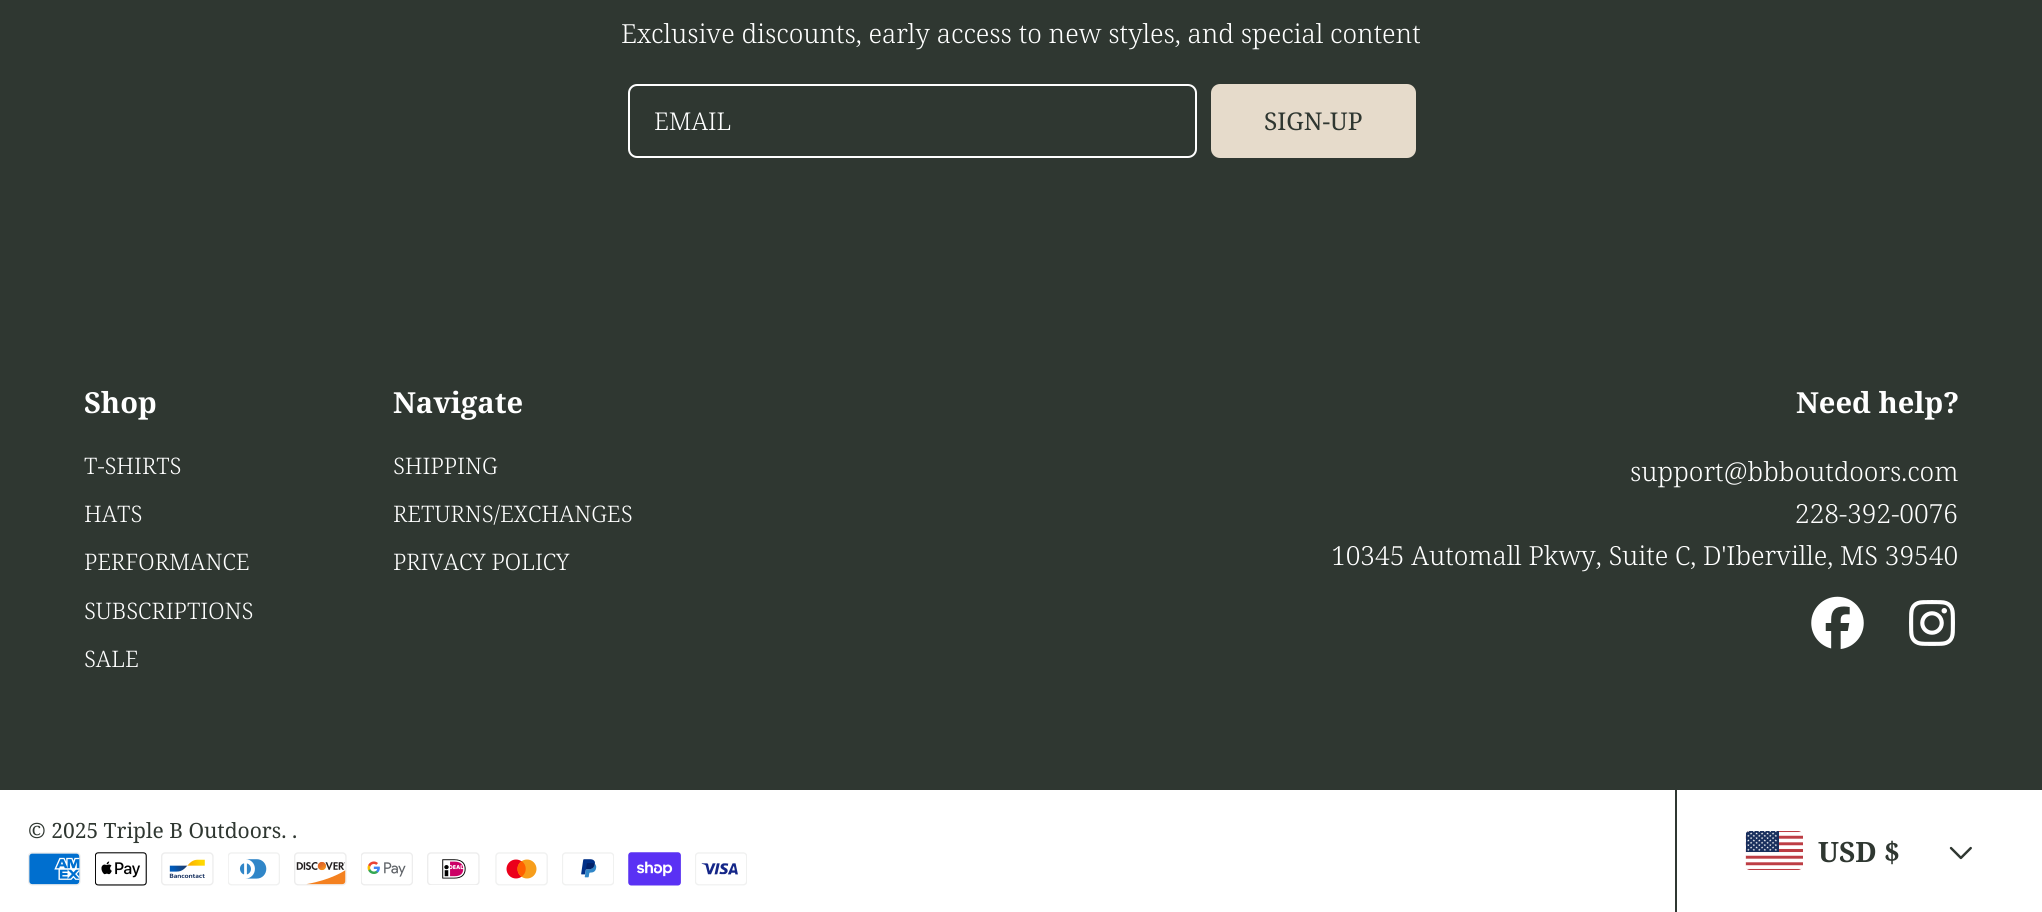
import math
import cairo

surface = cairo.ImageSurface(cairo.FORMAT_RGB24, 2042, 912)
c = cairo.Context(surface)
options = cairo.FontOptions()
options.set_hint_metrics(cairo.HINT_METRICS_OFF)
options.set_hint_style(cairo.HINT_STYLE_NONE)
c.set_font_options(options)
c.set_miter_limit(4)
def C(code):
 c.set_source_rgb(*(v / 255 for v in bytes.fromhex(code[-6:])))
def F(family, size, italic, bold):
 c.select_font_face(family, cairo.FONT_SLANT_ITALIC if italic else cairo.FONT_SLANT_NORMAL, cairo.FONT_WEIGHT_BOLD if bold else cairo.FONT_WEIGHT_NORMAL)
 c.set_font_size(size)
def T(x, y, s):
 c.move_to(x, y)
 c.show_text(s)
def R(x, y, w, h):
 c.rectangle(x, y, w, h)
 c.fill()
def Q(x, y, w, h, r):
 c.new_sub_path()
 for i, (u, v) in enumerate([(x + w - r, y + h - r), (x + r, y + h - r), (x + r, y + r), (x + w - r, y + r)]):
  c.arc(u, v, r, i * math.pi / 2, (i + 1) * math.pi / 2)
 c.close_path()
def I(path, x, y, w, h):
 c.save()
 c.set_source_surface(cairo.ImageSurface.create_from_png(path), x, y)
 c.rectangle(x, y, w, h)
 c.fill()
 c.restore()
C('ffffff')
c.paint()
C('2f3731')
R(0,0,2042,790)
F('Noto Serif Light',26.25,0,0)
C('ffffff')
T(621,43,'Exclusive discounts, early access to new styles, and special content')
Q(629,85,567,72,8)
c.stroke()
F('Noto Serif Light',24.5,0,0)
T(654,130,'EMAIL')
C('e6dbcb')
Q(1211,84,205,74,9)
c.fill()
F('Noto Serif',24.5,0,0)
C('2f3731')
T(1264,130,'SIGN-UP')
F('Noto Serif',29,0,1)
C('ffffff')
T(84,413,'Shop')
F('Noto Serif Light',22.75,0,0)
T(84,474,'T-SHIRTS')
T(84,522,'HATS')
T(84,570,'PERFORMANCE')
T(84,619,'SUBSCRIPTIONS')
T(84,667,'SALE')
F('Noto Serif',29,0,1)
T(393,413,'Navigate')
F('Noto Serif Light',22.75,0,0)
T(393,474,'SHIPPING')
T(393,522,'RETURNS/EXCHANGES')
T(393,570,'PRIVACY POLICY')
F('Noto Serif',29,0,1)
T(1796,413,'Need help?')
F('Noto Serif Light',26.25,0,0)
T(1630,481,'support@bbboutdoors.com')
T(1795,523,'228-392-0076')
T(1331,565,'10345 Automall Pkwy, Suite C, D\'Iberville, MS 39540')
I('1.png',1811,596,53,53)
I('2.png',1909,600,46,46)
F('Noto Serif',21,0,0)
C('2f3731')
T(28,838,'© 2025 Triple B Outdoors. .')
I('3.png',28,852,53,34)
I('4.png',95,852,52,34)
I('5.png',161,852,53,34)
I('6.png',228,852,52,34)
I('7.png',294,852,53,34)
I('8.png',361,852,52,34)
I('9.png',427,852,53,33)
I('10.png',495,852,53,34)
I('11.png',562,852,52,34)
I('12.png',628,852,53,34)
I('13.png',695,852,52,34)
R(1675,789,2,123)
I('14.png',1745,831,58,39)
F('Noto Serif',28,0,1)
T(1818,862,'USD $')
I('15.png',1949,846,23,14)
surface.write_to_png('o.png')
